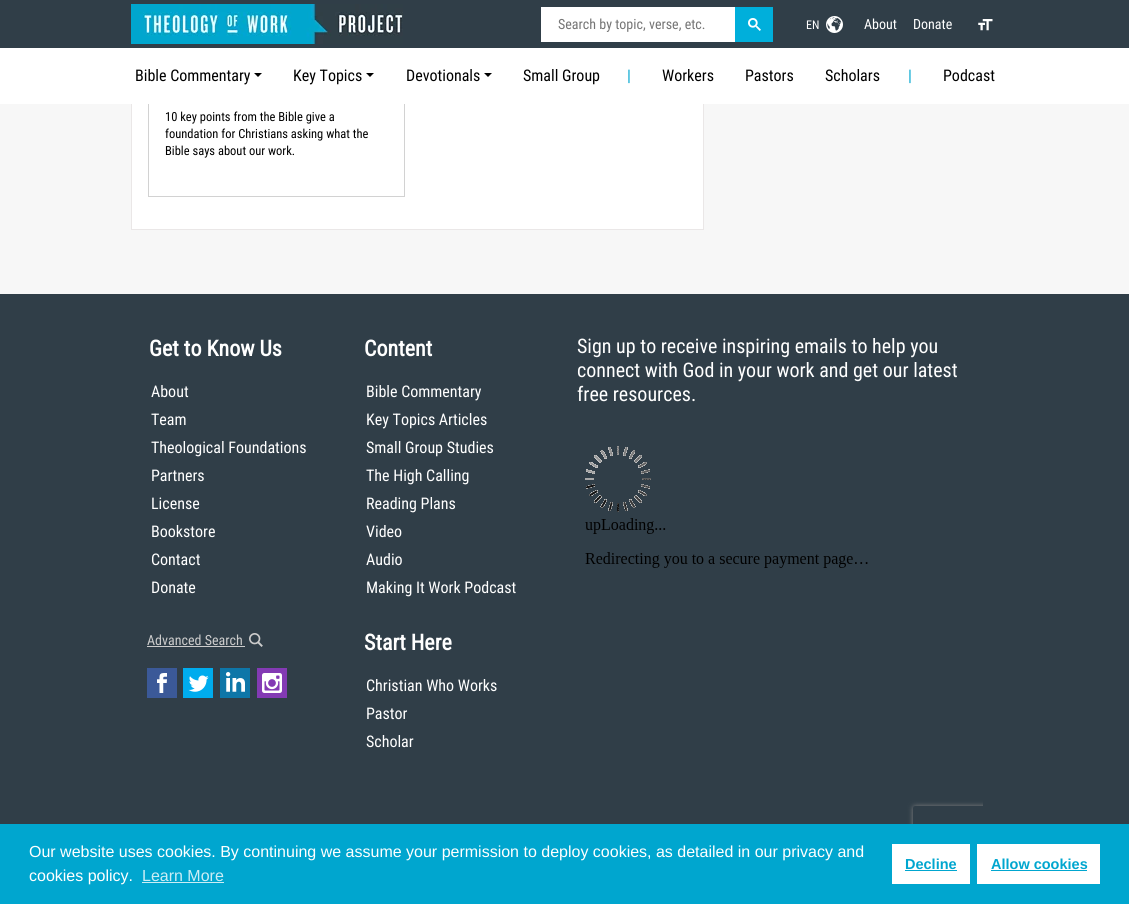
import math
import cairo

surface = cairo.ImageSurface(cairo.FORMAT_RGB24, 1129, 904)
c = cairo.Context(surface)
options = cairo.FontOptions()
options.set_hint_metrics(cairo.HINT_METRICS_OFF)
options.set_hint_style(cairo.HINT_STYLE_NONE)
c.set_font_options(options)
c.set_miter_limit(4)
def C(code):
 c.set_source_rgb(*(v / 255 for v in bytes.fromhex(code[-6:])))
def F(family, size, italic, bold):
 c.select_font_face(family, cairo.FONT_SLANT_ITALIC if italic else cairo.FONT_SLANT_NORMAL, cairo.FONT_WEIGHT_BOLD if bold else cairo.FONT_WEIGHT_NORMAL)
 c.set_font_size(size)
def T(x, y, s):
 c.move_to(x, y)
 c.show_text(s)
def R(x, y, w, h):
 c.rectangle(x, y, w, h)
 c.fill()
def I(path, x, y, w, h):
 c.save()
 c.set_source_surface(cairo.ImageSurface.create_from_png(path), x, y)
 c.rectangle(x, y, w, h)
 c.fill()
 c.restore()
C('f7f7f7')
c.paint()
C('ffffff')
R(132,104,571,125)
c.rectangle(131.5,-.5,572,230)
C('eae7e7')
c.set_line_width(1)
c.stroke()
c.rectangle(148.5,-.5,256,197)
C('d2d2d2')
c.stroke()
C('303e48')
R(0,0,1129,48)
I('1.png',131,4,272,40)
C('ffffff')
R(541,7,194,35)
F('Roboto Condensed',14,0,0)
C('757575')
T(558,29,'Search by topic, verse, etc.')
C('00afdb')
R(735,7,38,35)
I('2.png',748,18,13,13)
F('Roboto Condensed',12,0,0)
C('ffffff')
T(806,29,'EN')
I('3.png',826,16,17,17)
F('Roboto Condensed',14,0,0)
T(864,29,'About')
T(913,29,'Donate')
I('4.png',978,19,15,12)
R(0,48,1129,56)
F('Roboto Condensed',16,0,0)
C('000000')
T(135,81,'Bible Commentary')
c.new_path()
c.move_to(254,73)
c.line_to(262,73)
c.line_to(258,77)
c.close_path()
c.fill()
T(293,81,'Key Topics')
c.new_path()
c.move_to(366,73)
c.line_to(374,73)
c.line_to(370,77)
c.close_path()
c.fill()
T(406,81,'Devotionals')
c.new_path()
c.move_to(484,73)
c.line_to(492,73)
c.line_to(488,77)
c.close_path()
c.fill()
T(523,81,'Small Group')
C('00a6cf')
T(627,81,'|')
C('000000')
T(662,81,'Workers')
T(745,81,'Pastors')
T(825,81,'Scholars')
C('00a6cf')
T(908,81,'|')
C('000000')
T(943,81,'Podcast')
F('Roboto Condensed',12.5,0,0)
T(165,121,'10 key points from the Bible give a')
T(165,138,'foundation for Christians asking what the')
T(165,155,'Bible says about our work.')
C('303e48')
R(0,294,1129,530)
F('Roboto Condensed',22,0,1)
C('ffffff')
T(149,356,'Get to Know Us')
F('Roboto Condensed',16,0,0)
T(151,397,'About')
T(151,425,'Team')
T(151,453,'Theological Foundations')
T(151,481,'Partners')
T(151,509,'License')
T(151,537,'Bookstore')
T(151,565,'Contact')
T(151,593,'Donate')
F('Roboto Condensed',14,0,0)
C('cccccc')
T(147,645,'Advanced Search')
R(147,646,98,1)
I('5.png',249,633,14,14)
I('6.png',147,668,30,30)
I('7.png',183,668,30,30)
I('8.png',220,668,30,30)
I('9.png',257,668,30,30)
F('Roboto Condensed',22,0,1)
C('ffffff')
T(364,356,'Content')
F('Roboto Condensed',16,0,0)
T(366,397,'Bible Commentary')
T(366,425,'Key Topics Articles')
T(366,453,'Small Group Studies')
T(366,481,'The High Calling')
T(366,509,'Reading Plans')
T(366,537,'Video')
T(366,565,'Audio')
T(366,593,'Making It Work Podcast')
F('Roboto Condensed',22,0,1)
T(364,650,'Start Here')
F('Roboto Condensed',16,0,0)
T(366,691,'Christian Who Works')
T(366,719,'Pastor')
T(366,747,'Scholar')
F('Roboto Condensed',20,0,0)
T(577,353,'Sign up to receive inspiring emails to help you')
T(577,377,'connect with God in your work and get our latest')
T(577,401,'free resources.')
I('10.png',585,446,398,378)
C('00a6cf')
R(0,824,1129,80)
F('Liberation Sans',16,0,0)
C('ffffff')
T(29,857,'Our website uses cookies. By continuing we assume your permission to deploy cookies, as detailed in our privacy and')
T(29,881,'cookies policy.')
C('ccedf5')
T(142,881,'Learn More')
R(142,882,82,1)
C('ffffff')
R(892,844,78,40)
F('Liberation Sans',14.5,0,1)
C('00a6cf')
T(905,869,'Decline')
R(905,870,52,1)
C('ffffff')
R(977,844,123,40)
C('00a6cf')
T(991,869,'Allow cookies')
R(991,870,96,1)
surface.write_to_png('o.png')
